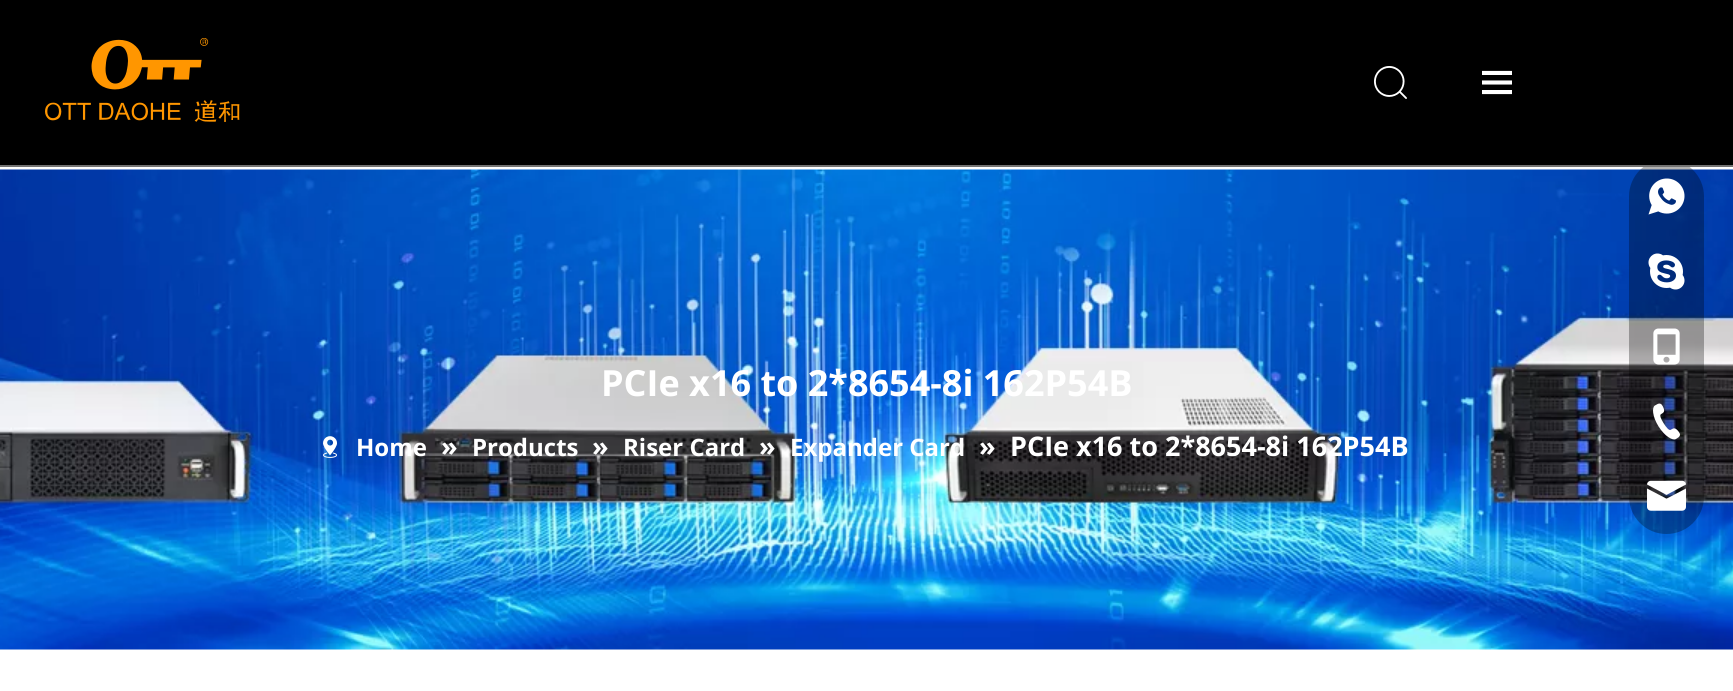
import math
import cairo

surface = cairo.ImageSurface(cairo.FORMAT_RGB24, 1733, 691)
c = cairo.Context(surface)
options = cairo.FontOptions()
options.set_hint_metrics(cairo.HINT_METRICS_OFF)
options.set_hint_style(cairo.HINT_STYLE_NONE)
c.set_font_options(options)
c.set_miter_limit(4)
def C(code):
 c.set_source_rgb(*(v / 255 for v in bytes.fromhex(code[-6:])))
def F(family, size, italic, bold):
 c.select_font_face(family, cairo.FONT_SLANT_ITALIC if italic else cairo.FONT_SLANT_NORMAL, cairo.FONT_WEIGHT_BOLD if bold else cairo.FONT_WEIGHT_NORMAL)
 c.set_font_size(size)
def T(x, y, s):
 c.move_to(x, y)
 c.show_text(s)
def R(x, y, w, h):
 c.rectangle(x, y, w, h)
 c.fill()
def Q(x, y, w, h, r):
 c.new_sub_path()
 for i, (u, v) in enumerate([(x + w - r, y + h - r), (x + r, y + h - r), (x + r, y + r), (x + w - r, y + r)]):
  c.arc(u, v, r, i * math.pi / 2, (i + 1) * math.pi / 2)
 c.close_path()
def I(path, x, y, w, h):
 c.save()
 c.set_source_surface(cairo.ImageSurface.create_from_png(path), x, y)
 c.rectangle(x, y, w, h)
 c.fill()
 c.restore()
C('ffffff')
c.paint()
I('4.png',0,169,1733,481)
c.set_source_rgba(0,0,0,0.3)
Q(1629,159,75,375,37.5)
c.fill()
C('000000')
R(0,0,1733,165)
C('737373')
R(0,165,1733,2)
I('1.png',45,38,195,84)
I('2.png',1374,66,33,33)
I('3.png',1482,70,30,25)
F('Open Sans',36,0,1)
C('ffffff')
T(601,396,'PCIe x16 to 2*8654-8i 162P54B')
I('5.png',323,436,14,22)
F('Open Sans',24,0,1)
T(356,456,'Home')
F('Open Sans',27,0,1)
T(441,456,'»')
F('Open Sans',24,0,1)
T(472,456,'Products')
F('Open Sans',27,0,1)
T(592,456,'»')
F('Open Sans',24,0,1)
T(623,456,'Riser Card')
F('Open Sans',27,0,1)
T(759,456,'»')
F('Open Sans',24,0,1)
T(790,456,'Expander Card')
F('Open Sans',27,0,1)
T(979,456,'»')
T(1010,456,'PCIe x16 to 2*8654-8i 162P54B')
I('6.png',1648,178,37,37)
I('7.png',1648,253,37,37)
I('8.png',1653,328,27,37)
I('9.png',1653,403,27,37)
I('10.png',1647,480,39,31)
surface.write_to_png('o.png')
